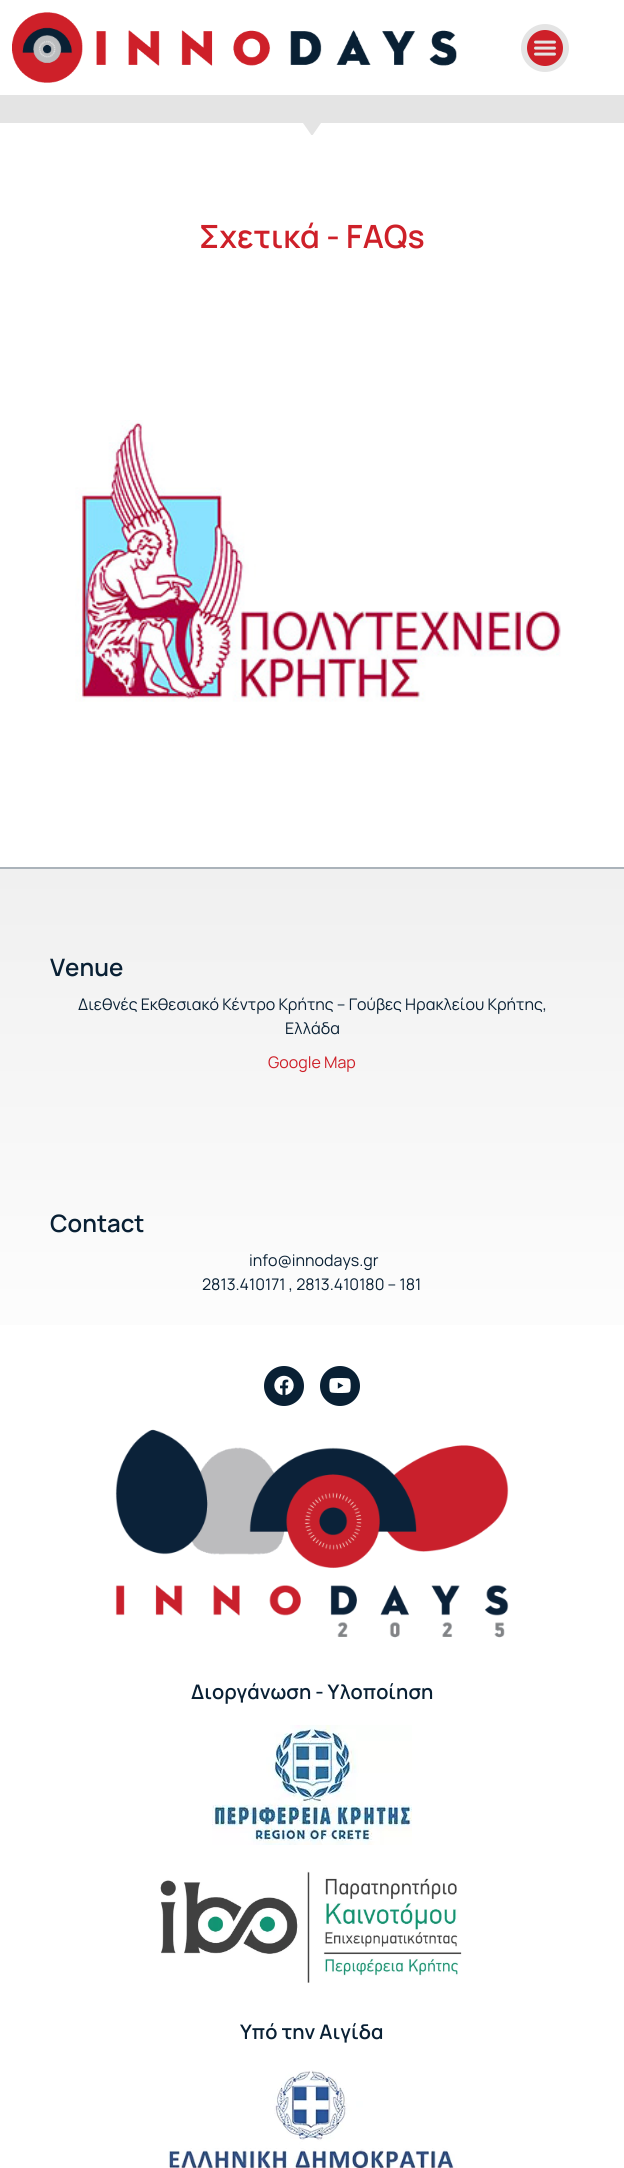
import math
import cairo

surface = cairo.ImageSurface(cairo.FORMAT_RGB24, 624, 2168)
c = cairo.Context(surface)
options = cairo.FontOptions()
options.set_hint_metrics(cairo.HINT_METRICS_OFF)
options.set_hint_style(cairo.HINT_STYLE_NONE)
c.set_font_options(options)
c.set_miter_limit(4)
def C(code):
 c.set_source_rgb(*(v / 255 for v in bytes.fromhex(code[-6:])))
def F(family, size, italic, bold):
 c.select_font_face(family, cairo.FONT_SLANT_ITALIC if italic else cairo.FONT_SLANT_NORMAL, cairo.FONT_WEIGHT_BOLD if bold else cairo.FONT_WEIGHT_NORMAL)
 c.set_font_size(size)
def T(x, y, s):
 c.move_to(x, y)
 c.show_text(s)
def R(x, y, w, h):
 c.rectangle(x, y, w, h)
 c.fill()
def I(path, x, y, w, h):
 c.save()
 c.set_source_surface(cairo.ImageSurface.create_from_png(path), x, y)
 c.rectangle(x, y, w, h)
 c.fill()
 c.restore()
C('ffffff')
c.paint()
I('1.png',12,12,445,71)
C('ce2029')
c.arc(545,48,21,0,2 * math.pi)
c.fill_preserve()
C('e4e4e4')
c.set_line_width(6)
c.stroke()
I('2.png',534,40,22,16)
R(0,95,624,40)
C('ffffff')
c.new_path()
c.move_to(321,123)
c.line_to(312,136)
c.line_to(303,123)
c.line_to(-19,123)
c.line_to(-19,136)
c.line_to(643,136)
c.line_to(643,123)
c.fill()
F('Manrope SemiBold',32,0,0)
C('ce2029')
T(199,248,'Σχετικά - FAQs')
I('3.png',75,420,486,282)
gradient = cairo.LinearGradient(312,869,312,1416)
gradient.add_color_stop_rgba(0,0.941,0.941,0.941,1)
gradient.add_color_stop_rgba(1,1,1,1,1)
c.set_source(gradient)
R(0,869,624,456)
C('abb3ba')
R(0,867,624,2)
F('Manrope SemiBold',24,0,0)
C('092034')
T(50,976,'Venue')
F('Manrope',16,0,0)
T(78,1010,'Διεθνές Εκθεσιακό Κέντρο Κρήτης – Γούβες Ηρακλείου Κρήτης,')
T(285,1034,'Ελλάδα')
C('ce2029')
T(268,1068,'Google Map')
F('Manrope SemiBold',24,0,0)
C('092034')
T(50,1232,'Contact')
F('Manrope',16,0,0)
T(249,1266,'info@innodays.gr')
T(202,1290,'2813.410171 , 2813.410180 – 181')
c.new_path()
c.arc(284,1386,20,0,2 * math.pi)
c.fill()
I('4.png',274,1375,20,20)
c.arc(340,1386,20,0,2 * math.pi)
c.fill()
I('5.png',329,1378,22,15)
I('6.png',115,1429,394,209)
F('Manrope SemiBold',20,0,0)
T(191,1699,'Διοργάνωση - Υλοποίηση')
I('7.png',212,1725,200,120)
I('8.png',160,1871,302,112)
T(240,2039,'Υπό την Αιγίδα')
I('9.png',168,2070,289,98)
surface.write_to_png('o.png')
